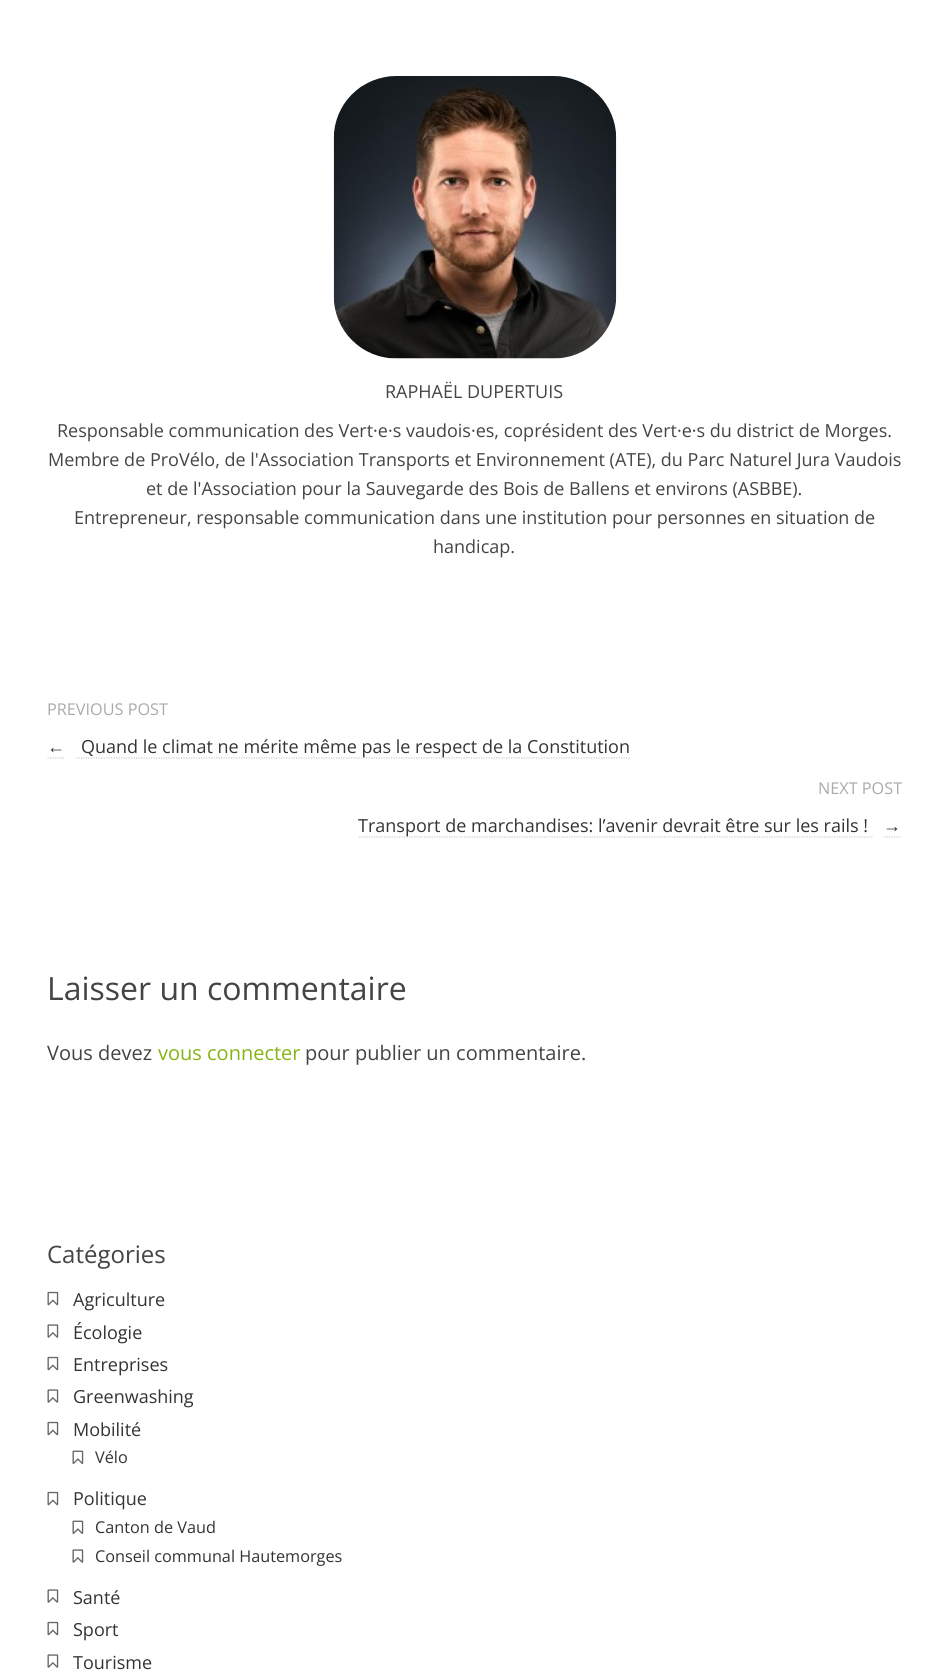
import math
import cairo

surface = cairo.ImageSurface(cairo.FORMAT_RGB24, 948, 1678)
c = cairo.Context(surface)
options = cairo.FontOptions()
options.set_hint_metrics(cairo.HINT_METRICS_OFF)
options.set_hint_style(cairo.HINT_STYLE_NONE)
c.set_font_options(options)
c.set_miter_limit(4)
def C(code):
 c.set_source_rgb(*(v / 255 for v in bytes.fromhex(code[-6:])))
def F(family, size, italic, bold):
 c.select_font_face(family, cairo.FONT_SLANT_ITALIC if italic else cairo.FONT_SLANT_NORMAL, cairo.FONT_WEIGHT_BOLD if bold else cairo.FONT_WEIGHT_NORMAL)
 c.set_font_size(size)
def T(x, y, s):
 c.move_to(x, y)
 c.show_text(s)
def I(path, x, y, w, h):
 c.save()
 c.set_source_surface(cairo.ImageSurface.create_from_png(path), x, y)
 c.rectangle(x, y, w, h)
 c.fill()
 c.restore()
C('ffffff')
c.paint()
I('1.png',333,76,284,283)
F('Open Sans',18,0,0)
C('444444')
T(385,398,'RAPHAËL DUPERTUIS')
T(57,437,'Responsable communication des Vert·e·s vaudois·es, coprésident des Vert·e·s du district de Morges.')
T(48,466,'Membre de ProVélo, de l\'Association Transports et Environnement (ATE), du Parc Naturel Jura Vaudois')
T(146,495,'et de l\'Association pour la Sauvegarde des Bois de Ballens et environs (ASBBE).')
T(74,524,'Entrepreneur, responsable communication dans une institution pour personnes en situation de')
T(433,553,'handicap.')
F('Open Sans',16.25,0,0)
C('aaaaaa')
T(47,715,'PREVIOUS POST')
F('Liberation Serif',18,0,0)
C('333333')
T(47,753,'←')
c.new_path()
c.move_to(47.5,758)
c.line_to(65,758)
C('cccccc')
c.set_line_width(1.2)
c.set_dash([1.25,1.25])
c.stroke()
c.new_path()
c.move_to(76,758)
c.line_to(630,758)
c.stroke()
F('Open Sans',18,0,0)
C('333333')
T(81,753,'Quand le climat ne mérite même pas le respect de la Constitution')
F('Open Sans',16.25,0,0)
C('aaaaaa')
T(818,794,'NEXT POST')
c.new_path()
c.move_to(359,837)
c.line_to(872.5,837)
C('cccccc')
c.stroke()
F('Open Sans',18,0,0)
C('333333')
T(358,832,'Transport de marchandises: l’avenir devrait être sur les rails !')
F('Liberation Serif',18,0,0)
T(883,832,'→')
c.new_path()
c.move_to(884,837)
c.line_to(901,837)
C('cccccc')
c.stroke()
F('Open Sans',32,0,0)
C('444444')
T(47,1000,'Laisser un commentaire')
F('Open Sans',20,0,0)
T(47,1060,'Vous devez')
C('84b414')
T(158,1060,'vous connecter')
C('444444')
T(305,1060,'pour publier un commentaire.')
F('Open Sans',24,0,0)
T(47,1263,'Catégories')
I('2.png',47,1291,12,15)
F('Open Sans',18,0,0)
C('333333')
T(73,1306,'Agriculture')
I('3.png',47,1324,12,14)
T(73,1339,'Écologie')
I('2.png',47,1356,12,15)
T(73,1371,'Entreprises')
I('3.png',47,1389,12,14)
T(73,1403,'Greenwashing')
I('2.png',47,1421,12,15)
T(73,1436,'Mobilité')
I('4.png',72,1450,12,14)
F('Open Sans',16.25,0,0)
T(95,1463,'Vélo')
I('2.png',47,1491,12,15)
F('Open Sans',18,0,0)
T(73,1505,'Politique')
I('4.png',72,1520,12,14)
F('Open Sans',16.25,0,0)
T(95,1533,'Canton de Vaud')
I('3.png',72,1549,12,14)
T(95,1562,'Conseil communal Hautemorges')
I('3.png',47,1589,12,14)
F('Open Sans',18,0,0)
T(73,1604,'Santé')
I('2.png',47,1621,12,15)
T(73,1636,'Sport')
I('3.png',47,1654,12,14)
T(73,1669,'Tourisme')
surface.write_to_png('o.png')
